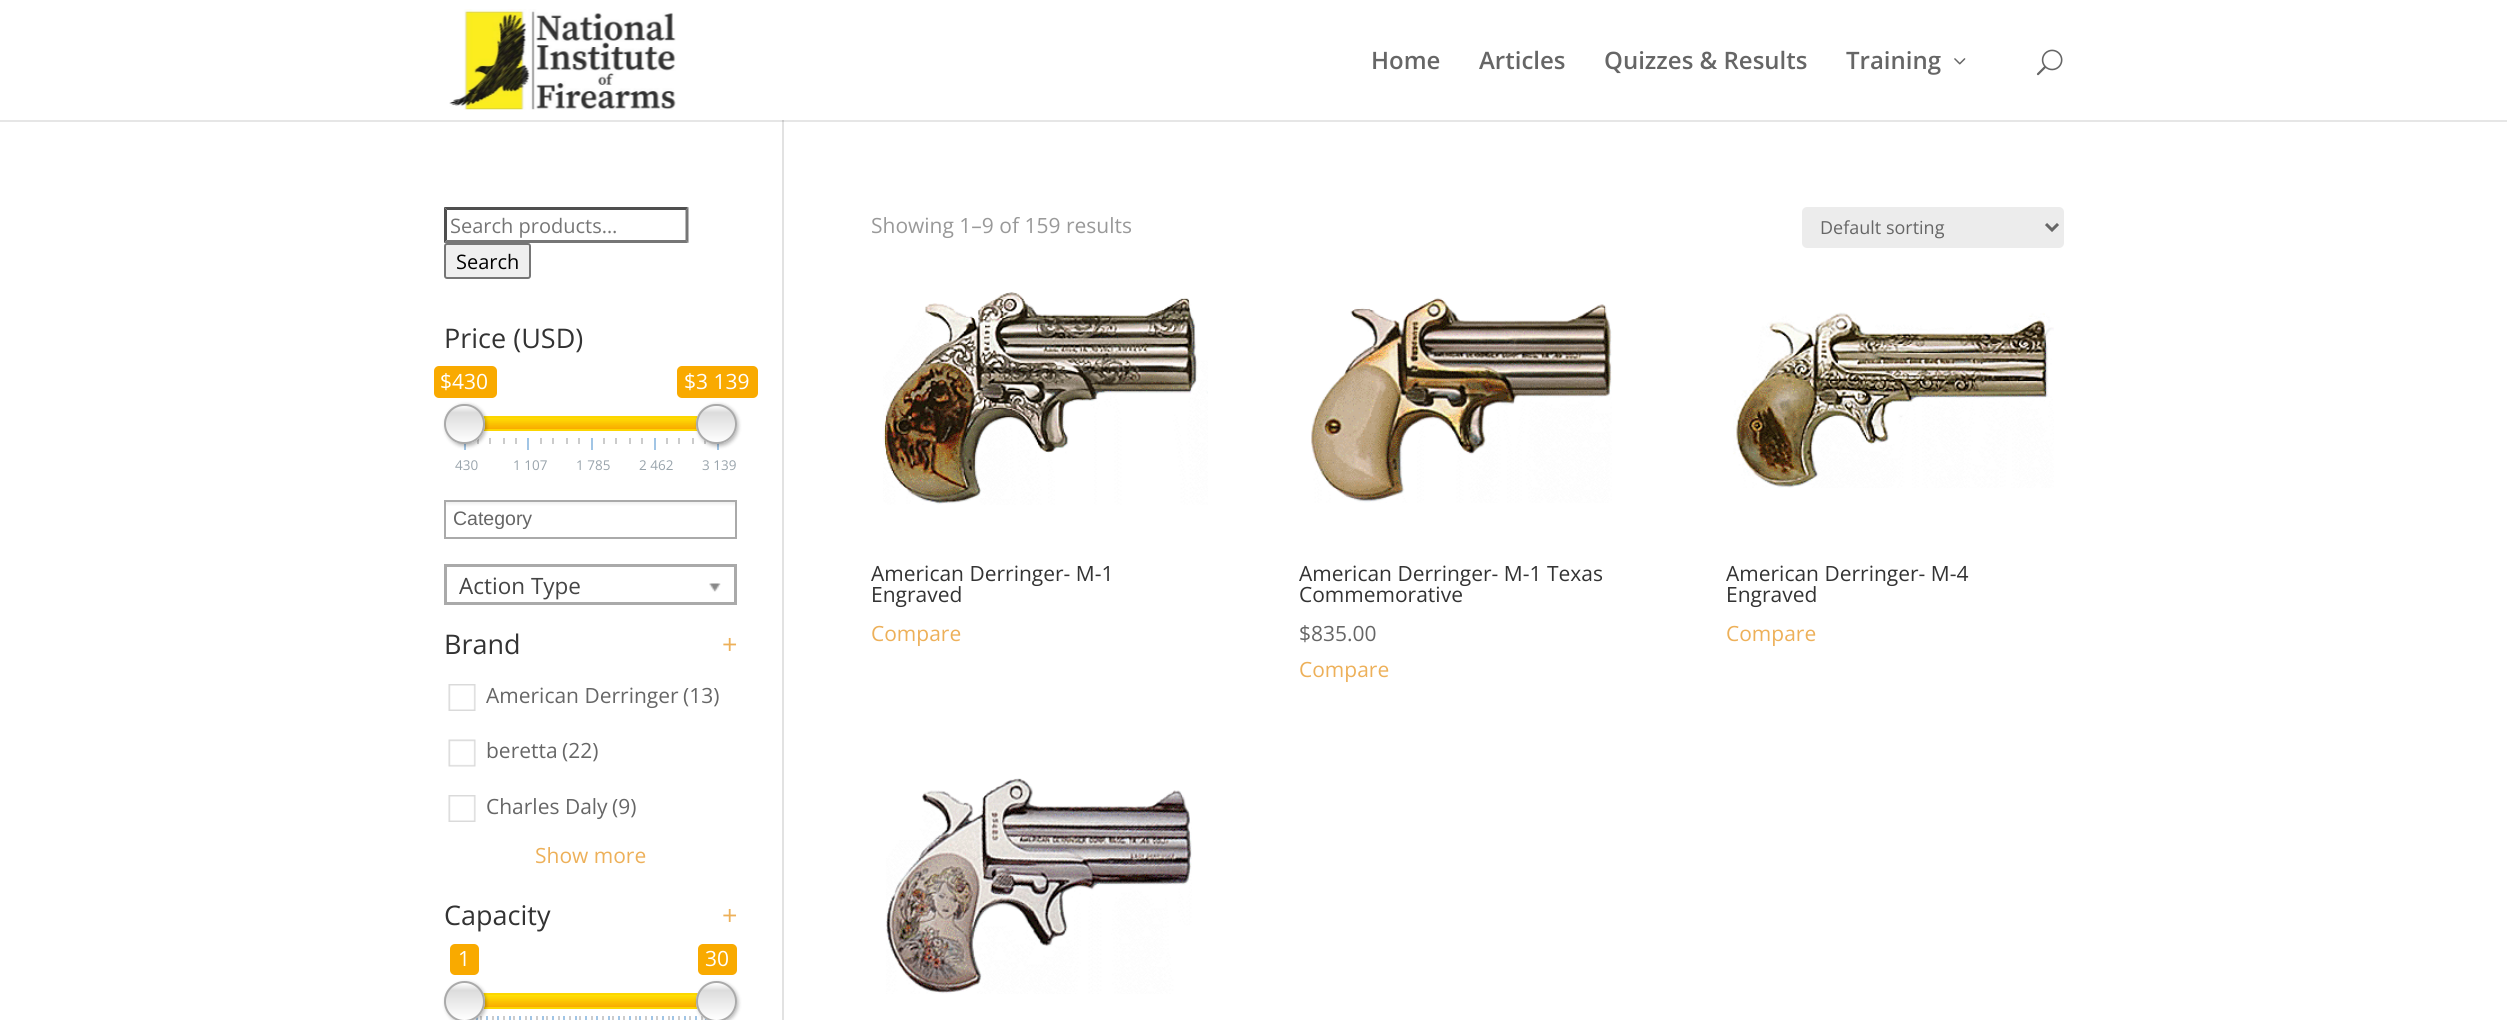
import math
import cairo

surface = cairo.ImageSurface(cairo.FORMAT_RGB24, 2507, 1020)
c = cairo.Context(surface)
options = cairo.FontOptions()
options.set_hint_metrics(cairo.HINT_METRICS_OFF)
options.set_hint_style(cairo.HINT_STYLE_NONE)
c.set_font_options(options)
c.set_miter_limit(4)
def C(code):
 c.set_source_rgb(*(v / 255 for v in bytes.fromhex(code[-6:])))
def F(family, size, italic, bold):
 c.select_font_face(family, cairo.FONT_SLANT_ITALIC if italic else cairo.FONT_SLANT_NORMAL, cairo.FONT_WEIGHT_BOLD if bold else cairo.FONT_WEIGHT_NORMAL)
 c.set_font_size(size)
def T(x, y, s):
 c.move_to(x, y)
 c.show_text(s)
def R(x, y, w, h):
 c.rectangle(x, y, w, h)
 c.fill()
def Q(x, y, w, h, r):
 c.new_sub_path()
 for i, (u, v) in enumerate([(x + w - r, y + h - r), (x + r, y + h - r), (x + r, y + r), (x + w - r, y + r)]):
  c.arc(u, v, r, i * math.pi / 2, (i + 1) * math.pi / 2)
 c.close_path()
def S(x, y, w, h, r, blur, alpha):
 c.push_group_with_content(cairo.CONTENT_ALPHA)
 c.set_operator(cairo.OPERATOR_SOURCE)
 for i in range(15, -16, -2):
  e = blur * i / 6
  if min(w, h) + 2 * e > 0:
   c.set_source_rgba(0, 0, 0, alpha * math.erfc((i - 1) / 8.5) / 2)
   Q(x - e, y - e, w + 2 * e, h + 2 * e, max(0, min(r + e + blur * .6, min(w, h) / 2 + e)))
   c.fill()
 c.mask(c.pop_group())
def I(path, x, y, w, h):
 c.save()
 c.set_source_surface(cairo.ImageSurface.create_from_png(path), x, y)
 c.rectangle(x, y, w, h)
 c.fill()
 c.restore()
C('ffffff')
c.paint()
C('e6e6e6')
R(0,120,2507,2)
I('1.png',449,9,227,101)
F('Open Sans SemiBold',24,0,0)
C('666666')
T(1371,69,'Home')
T(1479,69,'Articles')
T(1604,69,'Quizzes & Results')
T(1846,69,'Training')
I('2.png',1954,58,12,7)
I('3.png',2036,49,27,27)
C('e2e2e2')
R(782,120,2,900)
C('cbcbcb')
R(782,120,2,2)
C('4f4f4f')
c.new_path()
c.move_to(444,207)
c.line_to(688,207)
c.line_to(686,210)
c.line_to(447,210)
c.close_path()
c.fill()
C('767676')
c.new_path()
c.move_to(688.5,207)
c.line_to(688.5,243)
c.line_to(685.5,240)
c.line_to(685.5,210)
c.close_path()
c.fill()
c.new_path()
c.move_to(688,243)
c.line_to(444,243)
c.line_to(447,240)
c.line_to(686,240)
c.close_path()
c.fill()
C('4f4f4f')
c.new_path()
c.move_to(444,243)
c.line_to(444,207)
c.line_to(447,210)
c.line_to(447,240)
c.close_path()
c.fill()
F('Open Sans',20,0,0)
C('757575')
T(450,233,'Search products…')
C('efefef')
Q(445,244,85,34,2)
c.fill_preserve()
C('767676')
c.stroke()
C('000000')
T(456,269,'Search')
F('Open Sans',27,0,0)
C('333333')
T(444,348,'Price (USD)')
C('f9aa00')
Q(434,366,63,32,5)
c.fill()
F('Open Sans',21,0,0)
C('ffffff')
T(440,389,'$430')
C('f9aa00')
Q(677,366,81,32,5)
c.fill()
C('ffffff')
T(684,389,'$3 139')
c.save()
Q(444,416,293,15,7.5)
c.clip()
gradient = cairo.LinearGradient(590,411,590,435)
gradient.add_color_stop_rgba(0,0.867,0.867,0.867,1)
gradient.add_color_stop_rgba(1,1,1,1,1)
c.set_source(gradient)
R(444,418,293,9)
c.restore()
Q(445,417,291,13,6.5)
C('cccccc')
c.stroke()
gradient = cairo.LinearGradient(590,429,590,417)
gradient.add_color_stop_rgba(0,0.976,0.667,0,1)
gradient.add_color_stop_rgba(1,1,0.882,0,.98)
c.set_source(gradient)
R(484,418,213,11)
C('fcd600')
R(483,416,215,2)
R(483,429,215,2)
C('a1c5e5')
R(464,438,2,12)
C('cccccc')
R(477,438,2,6)
R(489,438,2,6)
C('000000')
S(446,405,40,41,20,2,.3)
c.save()
Q(444,404,41,40,20)
c.clip()
gradient = cairo.LinearGradient(464,405,464,443)
gradient.add_color_stop_rgba(0,1,1,1,1)
gradient.add_color_stop_rgba(.2,0.863,0.863,0.863,1)
gradient.add_color_stop_rgba(1,1,1,1,1)
c.set_source(gradient)
R(444,405,41,38)
c.restore()
Q(445,405,39,38,19)
C('aaaaaa')
c.stroke()
C('cccccc')
R(692,438,2,6)
R(704,438,2,6)
C('a1c5e5')
R(717,438,2,12)
C('000000')
S(698,405,40,41,20,2,.3)
c.save()
Q(696,404,41,40,20)
c.clip()
gradient = cairo.LinearGradient(716,405,716,443)
gradient.add_color_stop_rgba(0,1,1,1,1)
gradient.add_color_stop_rgba(.2,0.863,0.863,0.863,1)
gradient.add_color_stop_rgba(1,1,1,1,1)
c.set_source(gradient)
R(696,405,41,38)
c.restore()
Q(697,405,39,38,19)
C('aaaaaa')
c.stroke()
C('cccccc')
R(503,438,2,6)
R(515,438,2,6)
C('a1c5e5')
R(527,438,2,12)
C('cccccc')
R(540,438,2,6)
R(552,438,2,6)
R(566,438,2,6)
R(578,438,2,6)
C('a1c5e5')
R(591,438,2,12)
C('cccccc')
R(603,438,2,6)
R(615,438,2,6)
R(629,438,2,6)
R(641,438,2,6)
C('a1c5e5')
R(654,438,2,12)
C('cccccc')
R(666,438,2,6)
R(678,438,2,6)
F('Open Sans',13.5,0,0)
C('99a4ac')
T(455,470,'430')
T(513,470,'1 107')
T(576,470,'1 785')
T(639,470,'2 462')
T(702,470,'3 139')
gradient = cairo.LinearGradient(590,501,590,537)
gradient.add_color_stop_rgba(.01,0.933,0.933,0.933,1)
gradient.add_color_stop_rgba(.15,1,1,1,1)
c.set_source(gradient)
R(446,502,289,4)
c.rectangle(445,501,291,37)
C('aaaaaa')
c.stroke()
F('Liberation Sans',19.5,0,0)
C('666666')
T(453,525,'Category')
c.rectangle(445.5,565.5,290,38)
C('aaaaaa')
c.set_line_width(3)
c.stroke()
F('Open Sans',22.5,0,0)
C('444444')
T(459,594,'Action Type')
I('4.png',709,583,12,9)
F('Open Sans',27,0,0)
C('333333')
T(444,654,'Brand')
C('edb059')
T(722,654,'+')
I('5.png',448,684,28,27)
F('Open Sans',21,0,0)
C('666666')
T(486,703,'American Derringer')
T(683,703,'(13)')
I('6.png',448,739,28,28)
T(486,758,'beretta')
T(562,758,'(22)')
I('5.png',448,795,28,27)
T(486,814,'Charles Daly')
T(612,814,'(9)')
C('edb059')
T(535,863,'Show more')
F('Open Sans',27,0,0)
C('333333')
T(444,925,'Capacity')
C('edb059')
T(722,925,'+')
C('f9aa00')
Q(450,944,29,31,5)
c.fill()
F('Open Sans',21,0,0)
C('ffffff')
T(458,966,'1')
C('f9aa00')
Q(698,944,39,31,5)
c.fill()
C('ffffff')
T(705,966,'30')
c.save()
Q(444,993,293,15,7.5)
c.clip()
gradient = cairo.LinearGradient(590,989,590,1013)
gradient.add_color_stop_rgba(0,0.867,0.867,0.867,1)
gradient.add_color_stop_rgba(1,1,1,1,1)
c.set_source(gradient)
R(444,995,293,9)
c.restore()
Q(445,994,291,13,6.5)
C('cccccc')
c.set_line_width(2)
c.stroke()
gradient = cairo.LinearGradient(590,1007,590,995)
gradient.add_color_stop_rgba(0,0.976,0.667,0,1)
gradient.add_color_stop_rgba(1,1,0.882,0,.98)
c.set_source(gradient)
R(483,995,214,12)
C('fcd600')
R(483,993,215,2)
R(483,1007,215,2)
C('a1c5e5')
R(476,1016,2,4)
C('cccccc')
R(480,1016,2,4)
C('a1c5e5')
R(486,1016,2,4)
C('cccccc')
R(492,1016,2,4)
C('000000')
S(446,983,40,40,20,2,.3)
c.save()
Q(444,981,41,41,20.5)
c.clip()
gradient = cairo.LinearGradient(464,983,464,1020)
gradient.add_color_stop_rgba(0,1,1,1,1)
gradient.add_color_stop_rgba(.2,0.863,0.863,0.863,1)
gradient.add_color_stop_rgba(1,1,1,1,1)
c.set_source(gradient)
R(444,983,41,37)
c.restore()
c.arc(464.5,1001.5,19.5,0,2 * math.pi)
C('aaaaaa')
c.stroke()
C('a1c5e5')
R(695,1016,2,4)
C('cccccc')
R(701,1016,2,4)
C('a1c5e5')
R(705,1016,2,4)
C('000000')
S(698,983,40,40,20,2,.3)
c.save()
Q(696,981,41,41,20.5)
c.clip()
gradient = cairo.LinearGradient(716,983,716,1020)
gradient.add_color_stop_rgba(0,1,1,1,1)
gradient.add_color_stop_rgba(.2,0.863,0.863,0.863,1)
gradient.add_color_stop_rgba(1,1,1,1,1)
c.set_source(gradient)
R(696,983,41,37)
c.restore()
c.arc(716.5,1001.5,19.5,0,2 * math.pi)
C('aaaaaa')
c.stroke()
C('a1c5e5')
R(497,1016,2,4)
C('cccccc')
R(503,1016,2,4)
C('a1c5e5')
R(509,1016,2,4)
C('cccccc')
R(513,1016,2,4)
C('a1c5e5')
R(519,1016,2,4)
C('cccccc')
R(525,1016,2,4)
C('a1c5e5')
R(530,1016,2,4)
C('cccccc')
R(536,1016,2,4)
C('a1c5e5')
R(542,1016,2,4)
C('cccccc')
R(546,1016,2,4)
C('a1c5e5')
R(552,1016,2,4)
C('cccccc')
R(558,1016,2,4)
C('a1c5e5')
R(563,1016,2,4)
C('cccccc')
R(569,1016,2,4)
C('a1c5e5')
R(575,1016,2,4)
C('cccccc')
R(579,1016,2,4)
C('a1c5e5')
R(585,1016,2,4)
C('cccccc')
R(591,1016,2,4)
C('a1c5e5')
R(596,1016,2,4)
C('cccccc')
R(602,1016,2,4)
C('a1c5e5')
R(608,1016,2,4)
C('cccccc')
R(612,1016,2,4)
C('a1c5e5')
R(618,1016,2,4)
C('cccccc')
R(623,1016,2,4)
C('a1c5e5')
R(629,1016,2,4)
C('cccccc')
R(635,1016,2,4)
C('a1c5e5')
R(639,1016,2,4)
C('cccccc')
R(645,1016,2,4)
C('a1c5e5')
R(651,1016,2,4)
C('cccccc')
R(656,1016,2,4)
C('a1c5e5')
R(662,1016,2,4)
C('cccccc')
R(668,1016,2,4)
C('a1c5e5')
R(672,1016,2,4)
C('cccccc')
R(678,1016,2,4)
C('a1c5e5')
R(684,1016,2,4)
C('cccccc')
R(689,1016,2,4)
C('999999')
T(871,233,'Showing 1–9 of 159 results')
C('ececec')
Q(1802,207,262,41,5)
c.fill()
c.new_path()
c.move_to(2046,224)
c.line_to(2052,230)
c.line_to(2058,224)
C('666666')
c.set_line_width(3)
c.stroke()
F('Open Sans',18,0,0)
T(1820,234,'Default sorting')
I('7.png',883,292,325,213)
F('Open Sans',21,0,0)
C('333333')
T(871,581,'American Derringer- M-1')
T(871,602,'Engraved')
C('edb059')
T(871,641,'Compare')
I('8.png',1311,297,301,206)
C('333333')
T(1299,581,'American Derringer- M-1 Texas')
T(1299,602,'Commemorative')
C('666666')
T(1299,641,'$835.00')
C('edb059')
T(1299,677,'Compare')
I('9.png',1733,312,321,176)
C('333333')
T(1726,581,'American Derringer- M-4')
T(1726,602,'Engraved')
C('edb059')
T(1726,641,'Compare')
I('10.png',886,778,306,216)
surface.write_to_png('o.png')
